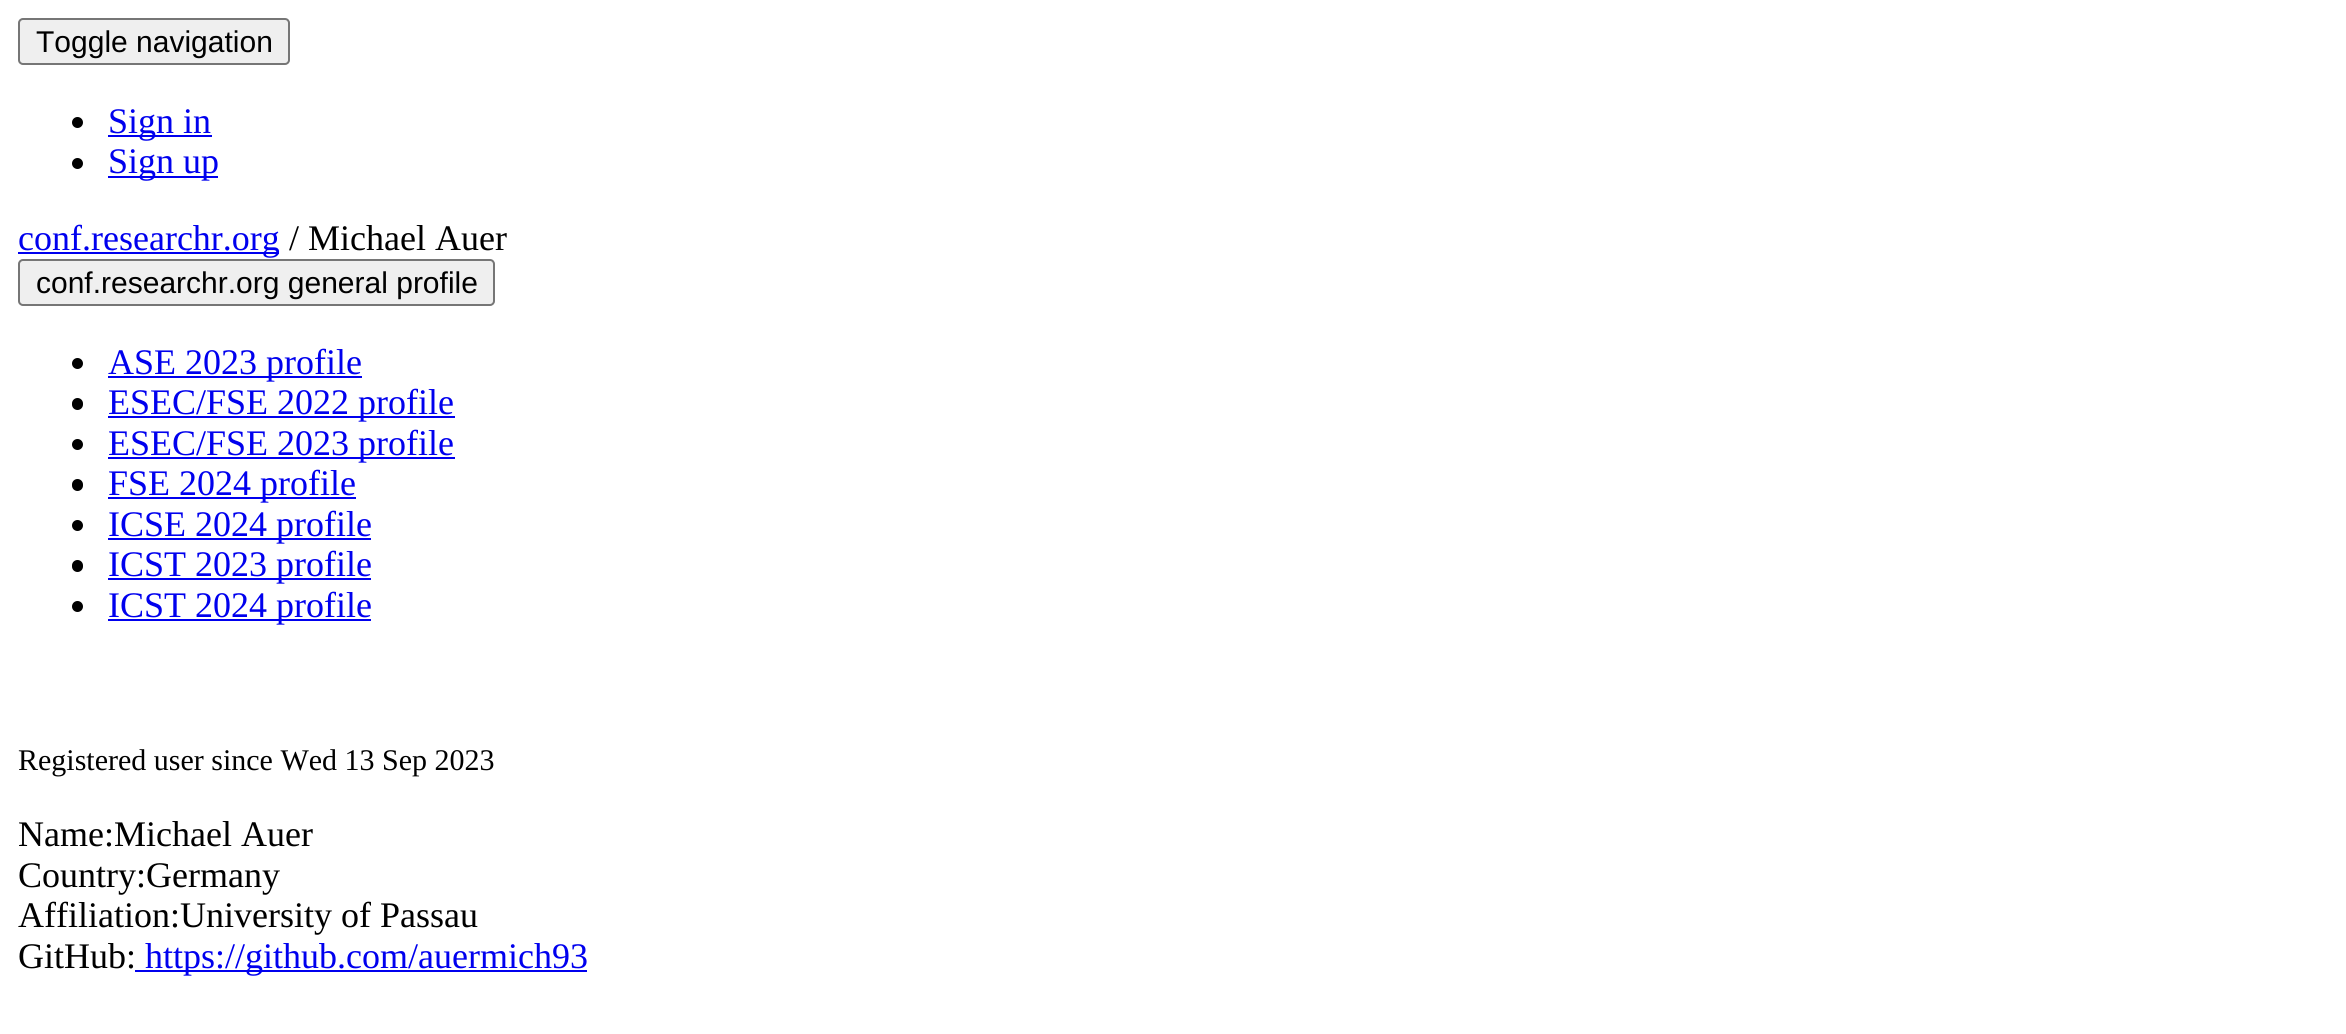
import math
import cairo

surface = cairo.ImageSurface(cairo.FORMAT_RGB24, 2346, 1034)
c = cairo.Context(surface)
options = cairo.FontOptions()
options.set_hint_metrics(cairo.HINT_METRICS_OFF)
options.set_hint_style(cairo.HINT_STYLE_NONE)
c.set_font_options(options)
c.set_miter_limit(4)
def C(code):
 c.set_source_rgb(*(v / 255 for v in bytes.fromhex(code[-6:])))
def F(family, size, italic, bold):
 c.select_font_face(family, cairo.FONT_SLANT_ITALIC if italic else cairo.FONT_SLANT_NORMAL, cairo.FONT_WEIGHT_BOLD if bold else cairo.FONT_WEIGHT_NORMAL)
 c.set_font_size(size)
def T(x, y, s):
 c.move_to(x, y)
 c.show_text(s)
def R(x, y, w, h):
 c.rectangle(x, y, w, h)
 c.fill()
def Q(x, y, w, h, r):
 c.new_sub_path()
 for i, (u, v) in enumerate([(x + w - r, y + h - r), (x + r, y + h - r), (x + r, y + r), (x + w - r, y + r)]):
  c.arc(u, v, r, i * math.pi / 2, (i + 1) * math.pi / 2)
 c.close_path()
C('ffffff')
c.paint()
C('efefef')
Q(19,19,270,45,4)
c.fill_preserve()
C('767676')
c.stroke()
F('Liberation Sans',30,0,0)
C('000000')
T(36,52,'Toggle navigation')
c.new_path()
c.arc(77.5,122.5,5.5,0,2 * math.pi)
c.fill()
C('0000ee')
R(108,135,104,2)
F('Liberation Serif',36,0,0)
T(108,133,'Sign in')
C('000000')
c.new_path()
c.arc(77.5,163.5,5.5,0,2 * math.pi)
c.fill()
C('0000ee')
R(108,176,110,2)
T(108,173,'Sign up')
R(18,252,261,2)
T(18,250,'conf.researchr.org')
C('000000')
T(289,250,'/ Michael Auer')
C('efefef')
Q(19,260,475,45,4)
c.fill_preserve()
C('767676')
c.stroke()
F('Liberation Sans',30,0,0)
C('000000')
T(36,293,'conf.researchr.org general profile')
c.new_path()
c.arc(77.5,363.5,5.5,0,2 * math.pi)
c.fill()
C('0000ee')
R(108,376,254,2)
F('Liberation Serif',36,0,0)
T(108,374,'ASE 2023 profile')
C('000000')
Q(72,398,11,12,5.5)
c.fill()
C('0000ee')
R(108,416,347,2)
T(108,414,'ESEC/FSE 2022 profile')
C('000000')
c.new_path()
c.arc(77.5,444.5,5.5,0,2 * math.pi)
c.fill()
C('0000ee')
R(108,457,347,2)
T(108,455,'ESEC/FSE 2023 profile')
C('000000')
Q(72,479,11,12,5.5)
c.fill()
C('0000ee')
R(108,497,248,2)
T(108,495,'FSE 2024 profile')
C('000000')
c.new_path()
c.arc(77.5,525.5,5.5,0,2 * math.pi)
c.fill()
C('0000ee')
R(108,538,263,2)
T(108,536,'ICSE 2024 profile')
C('000000')
Q(72,560,11,12,5.5)
c.fill()
C('0000ee')
R(108,578,263,2)
T(108,576,'ICST 2023 profile')
C('000000')
c.new_path()
c.arc(77.5,606.5,5.5,0,2 * math.pi)
c.fill()
C('0000ee')
R(108,619,263,2)
T(108,617,'ICST 2024 profile')
F('Liberation Serif',30,0,0)
C('000000')
T(18,770,'Registered user since Wed 13 Sep 2023')
F('Liberation Serif',36,0,0)
T(18,846,'Name:Michael Auer')
T(18,887,'Country:Germany')
T(18,927,'Affiliation:University of Passau')
T(18,968,'GitHub:')
C('0000ee')
R(135,970,452,2)
T(145,968,'https://github.com/auermich93')
surface.write_to_png('o.png')
